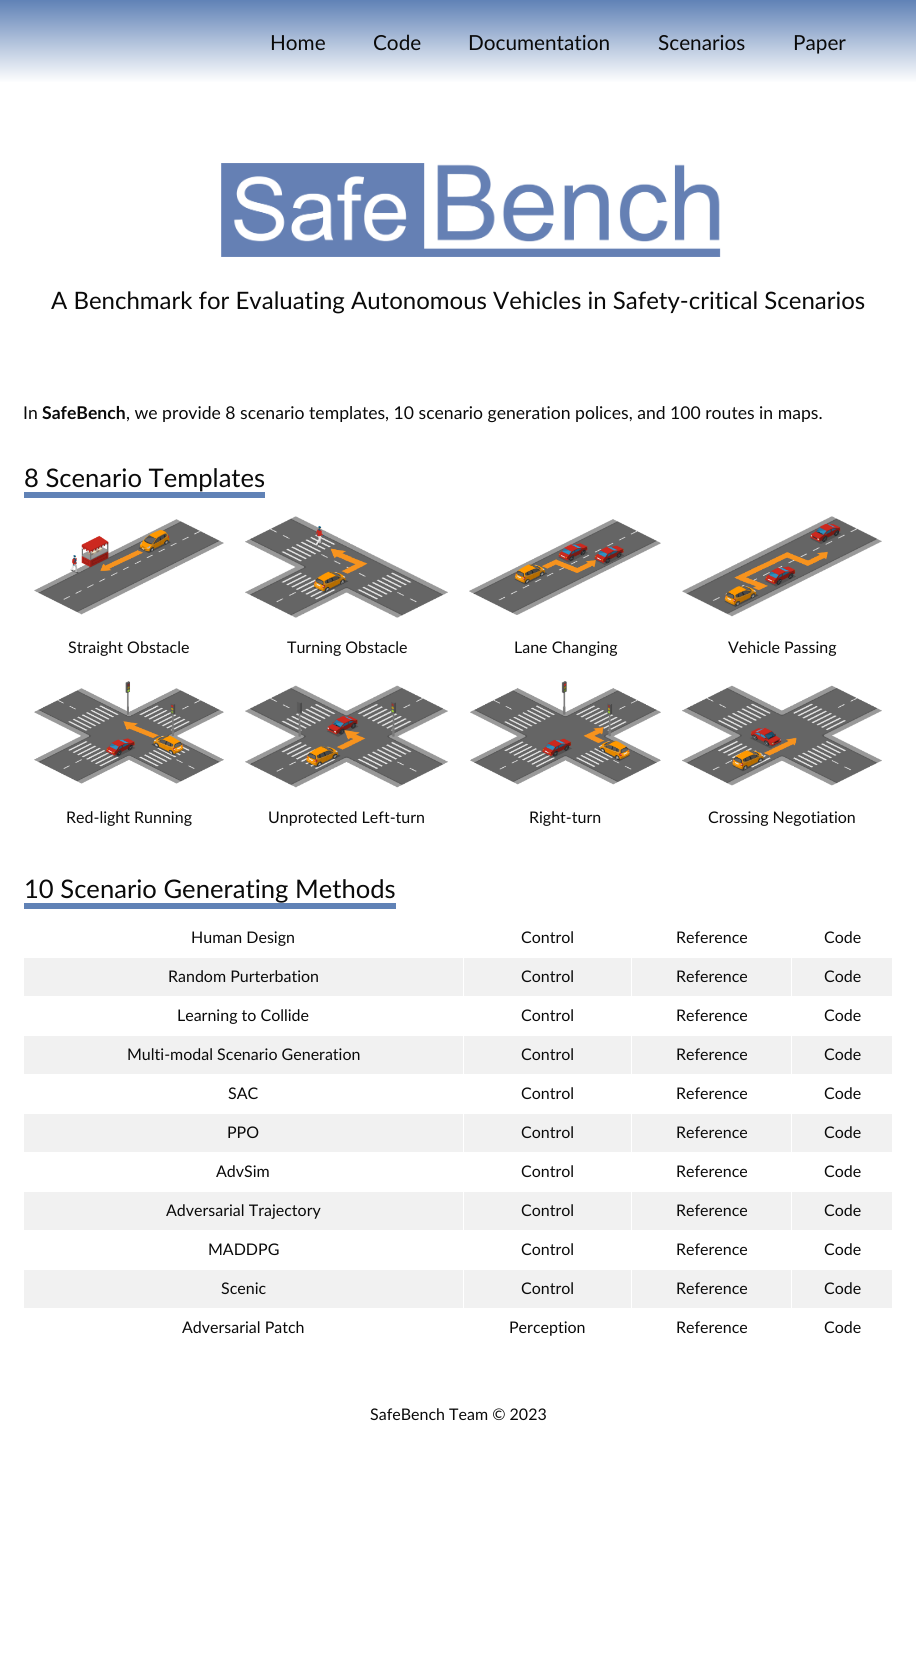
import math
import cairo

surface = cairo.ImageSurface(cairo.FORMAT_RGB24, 916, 1672)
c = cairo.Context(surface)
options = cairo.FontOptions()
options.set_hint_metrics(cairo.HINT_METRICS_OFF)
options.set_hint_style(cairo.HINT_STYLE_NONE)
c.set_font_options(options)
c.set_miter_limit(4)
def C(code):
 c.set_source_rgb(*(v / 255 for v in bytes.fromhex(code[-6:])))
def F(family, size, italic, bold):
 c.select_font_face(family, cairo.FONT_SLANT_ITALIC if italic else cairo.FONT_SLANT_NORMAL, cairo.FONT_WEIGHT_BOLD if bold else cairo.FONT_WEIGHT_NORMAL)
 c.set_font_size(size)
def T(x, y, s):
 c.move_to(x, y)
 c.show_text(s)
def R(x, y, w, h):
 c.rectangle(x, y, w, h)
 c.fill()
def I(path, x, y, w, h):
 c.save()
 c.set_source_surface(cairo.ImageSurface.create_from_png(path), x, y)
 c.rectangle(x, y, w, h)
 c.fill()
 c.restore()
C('ffffff')
c.paint()
gradient = cairo.LinearGradient(458,0,458,83)
gradient.add_color_stop_rgba(0,0.376,0.51,0.714,1)
gradient.add_color_stop_rgba(1,1,1,1,1)
c.set_source(gradient)
R(0,0,916,82)
F('Lato',20.75,0,0)
C('0a0a0a')
T(270,50,'Home')
T(373,50,'Code')
T(468,50,'Documentation')
T(658,50,'Scenarios')
T(793,50,'Paper')
I('1.png',221,163,500,94)
F('Lato',24,0,0)
T(51,309,'A Benchmark for Evaluating Autonomous Vehicles in Safety-critical Scenarios')
F('Lato',17.6,0,0)
T(23,419,'In')
F('Lato',17.6,0,1)
T(42,419,'SafeBench')
F('Lato',17.6,0,0)
T(126,419,', we provide 8 scenario templates, 10 scenario generation polices, and 100 routes in maps.')
F('Lato',25.6,0,0)
T(24,487,'8 Scenario Templates')
C('6082b6')
R(24,492,241,6)
I('2.png',34,519,190,96)
I('3.png',245,516,203,102)
I('4.png',469,519,192,96)
I('5.png',682,516,200,101)
F('Lato',16,0,0)
C('0a0a0a')
T(68,653,'Straight Obstacle')
T(287,653,'Turning Obstacle')
T(514,653,'Lane Changing')
T(728,653,'Vehicle Passing')
I('6.png',34,681,190,103)
I('7.png',245,685,203,103)
I('8.png',470,681,191,104)
I('9.png',682,685,200,101)
T(66,823,'Red-light Running')
T(268,823,'Unprotected Left-turn')
T(529,823,'Right-turn')
T(708,823,'Crossing Negotiation')
F('Lato',25.6,0,0)
T(24,898,'10 Scenario Generating Methods')
C('6082b6')
R(24,903,372,6)
F('Lato',16,0,0)
C('0a0a0a')
T(191,943,'Human Design')
T(521,943,'Control')
T(676,943,'Reference')
T(824,943,'Code')
C('f1f1f1')
R(24,958,868,38)
C('0a0a0a')
T(168,982,'Random Purterbation')
C('ffffff')
R(463,957,1,40)
C('0a0a0a')
T(521,982,'Control')
C('ffffff')
R(631,957,1,40)
C('0a0a0a')
T(676,982,'Reference')
C('ffffff')
R(791,957,1,40)
C('0a0a0a')
T(824,982,'Code')
T(177,1021,'Learning to Collide')
T(521,1021,'Control')
T(676,1021,'Reference')
T(824,1021,'Code')
C('f1f1f1')
R(24,1036,868,38)
C('0a0a0a')
T(127,1060,'Multi-modal Scenario Generation')
C('ffffff')
R(463,1035,1,40)
C('0a0a0a')
T(521,1060,'Control')
C('ffffff')
R(631,1035,1,40)
C('0a0a0a')
T(676,1060,'Reference')
C('ffffff')
R(791,1035,1,40)
C('0a0a0a')
T(824,1060,'Code')
T(228,1099,'SAC')
T(521,1099,'Control')
T(676,1099,'Reference')
T(824,1099,'Code')
C('f1f1f1')
R(24,1114,868,38)
C('0a0a0a')
T(227,1138,'PPO')
C('ffffff')
R(463,1113,1,40)
C('0a0a0a')
T(521,1138,'Control')
C('ffffff')
R(631,1113,1,40)
C('0a0a0a')
T(676,1138,'Reference')
C('ffffff')
R(791,1113,1,40)
C('0a0a0a')
T(824,1138,'Code')
T(216,1177,'AdvSim')
T(521,1177,'Control')
T(676,1177,'Reference')
T(824,1177,'Code')
C('f1f1f1')
R(24,1192,868,38)
C('0a0a0a')
T(166,1216,'Adversarial Trajectory')
C('ffffff')
R(463,1191,1,40)
C('0a0a0a')
T(521,1216,'Control')
C('ffffff')
R(631,1191,1,40)
C('0a0a0a')
T(676,1216,'Reference')
C('ffffff')
R(791,1191,1,40)
C('0a0a0a')
T(824,1216,'Code')
T(208,1255,'MADDPG')
T(521,1255,'Control')
T(676,1255,'Reference')
T(824,1255,'Code')
C('f1f1f1')
R(24,1270,868,38)
C('0a0a0a')
T(221,1294,'Scenic')
C('ffffff')
R(463,1269,1,40)
C('0a0a0a')
T(521,1294,'Control')
C('ffffff')
R(631,1269,1,40)
C('0a0a0a')
T(676,1294,'Reference')
C('ffffff')
R(791,1269,1,40)
C('0a0a0a')
T(824,1294,'Code')
T(182,1333,'Adversarial Patch')
T(509,1333,'Perception')
T(676,1333,'Reference')
T(824,1333,'Code')
T(370,1420,'SafeBench Team © 2023')
surface.write_to_png('o.png')
